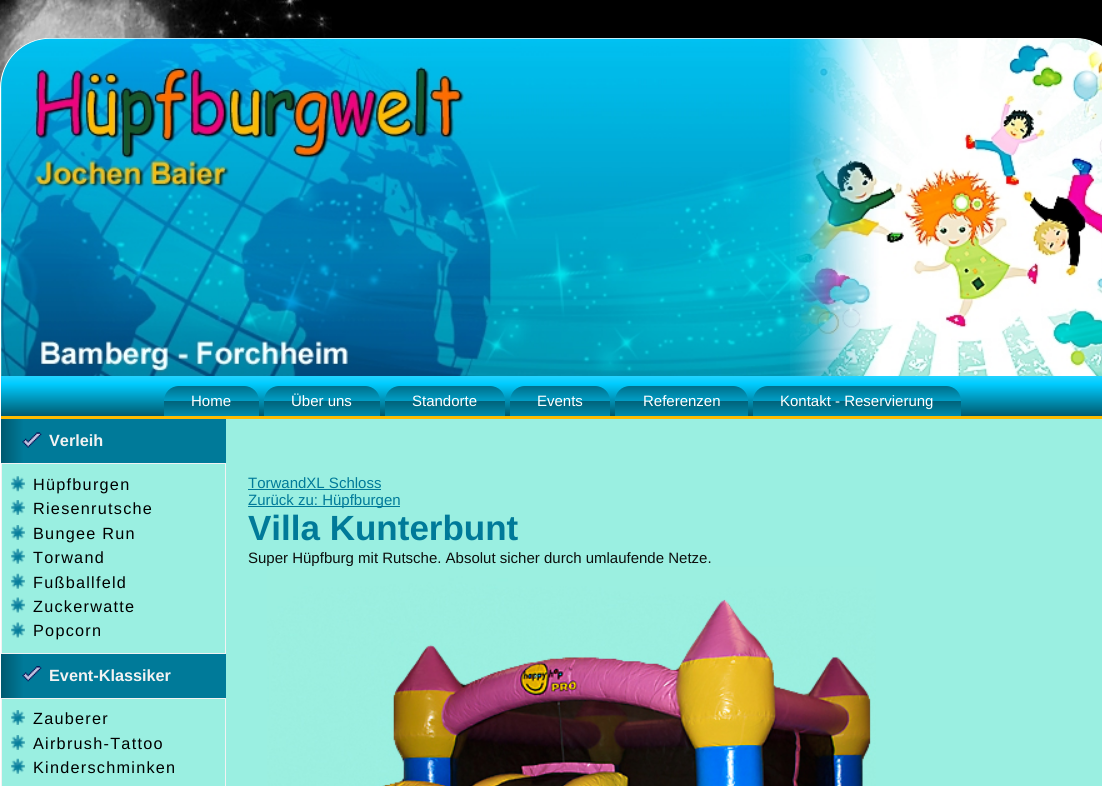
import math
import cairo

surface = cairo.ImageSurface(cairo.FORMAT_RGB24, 1102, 786)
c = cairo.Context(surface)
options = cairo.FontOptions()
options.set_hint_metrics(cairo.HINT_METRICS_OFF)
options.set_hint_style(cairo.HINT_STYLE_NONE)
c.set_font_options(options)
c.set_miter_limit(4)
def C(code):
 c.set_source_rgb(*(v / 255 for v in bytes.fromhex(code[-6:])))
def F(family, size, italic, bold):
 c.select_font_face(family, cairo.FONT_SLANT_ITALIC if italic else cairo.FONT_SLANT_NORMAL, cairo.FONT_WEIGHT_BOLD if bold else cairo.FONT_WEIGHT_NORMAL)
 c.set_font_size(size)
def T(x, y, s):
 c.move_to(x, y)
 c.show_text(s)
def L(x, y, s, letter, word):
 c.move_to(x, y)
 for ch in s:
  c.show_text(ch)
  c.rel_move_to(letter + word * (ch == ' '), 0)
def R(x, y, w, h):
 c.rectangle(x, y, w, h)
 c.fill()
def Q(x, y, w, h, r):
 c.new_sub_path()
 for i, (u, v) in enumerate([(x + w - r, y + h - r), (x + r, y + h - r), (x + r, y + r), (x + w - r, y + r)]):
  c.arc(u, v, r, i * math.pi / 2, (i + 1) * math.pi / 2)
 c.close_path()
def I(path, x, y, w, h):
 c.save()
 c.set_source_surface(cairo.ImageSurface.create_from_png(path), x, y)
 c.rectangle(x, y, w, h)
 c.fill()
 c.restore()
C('000000')
c.paint()
I('1.png',0,0,332,88)
C('9aefe1')
Q(.5,38.5,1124,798,49.5)
c.fill_preserve()
C('ffffff')
c.set_line_width(1)
c.stroke()
I('2.png',1,38,1101,338)
gradient = cairo.LinearGradient(563,376,563,419)
gradient.add_color_stop_rgba(0,0.141,0.827,1,1)
gradient.add_color_stop_rgba(.18,0,0.8,1,1)
gradient.add_color_stop_rgba(1,0,0.306,0.38,1)
c.set_source(gradient)
R(1,376,1101,40)
C('ffbb00')
R(1,416,1101,3)
gradient = cairo.LinearGradient(211,386,211,416)
gradient.add_color_stop_rgba(0,0,0.431,0.541,1)
gradient.add_color_stop_rgba(.5,0,0.624,0.78,1)
gradient.add_color_stop_rgba(.5,0,0.384,0.478,1)
gradient.add_color_stop_rgba(1,0,0.545,0.678,1)
c.set_source(gradient)
c.new_path()
c.move_to(179,386)
c.line_to(244,386)
c.curve_to(252.5,386,259,392.5,259,401)
c.line_to(259,416)
c.line_to(164,416)
c.line_to(164,401)
c.curve_to(164,392.5,170.5,386,179,386)
c.close_path()
c.fill()
F('Liberation Sans',15,0,0)
C('ffffff')
T(191,406,'Home')
gradient = cairo.LinearGradient(322,386,322,416)
gradient.add_color_stop_rgba(0,0,0.431,0.541,1)
gradient.add_color_stop_rgba(.5,0,0.624,0.78,1)
gradient.add_color_stop_rgba(.5,0,0.384,0.478,1)
gradient.add_color_stop_rgba(1,0,0.545,0.678,1)
c.set_source(gradient)
c.new_path()
c.move_to(279,386)
c.line_to(365,386)
c.curve_to(373.5,386,380,392.5,380,401)
c.line_to(380,416)
c.line_to(264,416)
c.line_to(264,401)
c.curve_to(264,392.5,270.5,386,279,386)
c.close_path()
c.fill()
C('ffffff')
T(291,406,'Über uns')
gradient = cairo.LinearGradient(445,386,445,416)
gradient.add_color_stop_rgba(0,0,0.431,0.541,1)
gradient.add_color_stop_rgba(.5,0,0.624,0.78,1)
gradient.add_color_stop_rgba(.5,0,0.384,0.478,1)
gradient.add_color_stop_rgba(1,0,0.545,0.678,1)
c.set_source(gradient)
c.new_path()
c.move_to(400,386)
c.line_to(490,386)
c.curve_to(498.5,386,505,392.5,505,401)
c.line_to(505,416)
c.line_to(385,416)
c.line_to(385,401)
c.curve_to(385,392.5,391.5,386,400,386)
c.close_path()
c.fill()
C('ffffff')
T(412,406,'Standorte')
gradient = cairo.LinearGradient(560,386,560,416)
gradient.add_color_stop_rgba(0,0,0.431,0.541,1)
gradient.add_color_stop_rgba(.5,0,0.624,0.78,1)
gradient.add_color_stop_rgba(.5,0,0.384,0.478,1)
gradient.add_color_stop_rgba(1,0,0.545,0.678,1)
c.set_source(gradient)
c.new_path()
c.move_to(525,386)
c.line_to(595,386)
c.curve_to(603.5,386,610,392.5,610,401)
c.line_to(610,416)
c.line_to(510,416)
c.line_to(510,401)
c.curve_to(510,392.5,516.5,386,525,386)
c.close_path()
c.fill()
C('ffffff')
T(537,406,'Events')
gradient = cairo.LinearGradient(681,386,681,416)
gradient.add_color_stop_rgba(0,0,0.431,0.541,1)
gradient.add_color_stop_rgba(.5,0,0.624,0.78,1)
gradient.add_color_stop_rgba(.5,0,0.384,0.478,1)
gradient.add_color_stop_rgba(1,0,0.545,0.678,1)
c.set_source(gradient)
c.new_path()
c.move_to(630,386)
c.line_to(733,386)
c.curve_to(741.5,386,748,392.5,748,401)
c.line_to(748,416)
c.line_to(615,416)
c.line_to(615,401)
c.curve_to(615,392.5,621.5,386,630,386)
c.close_path()
c.fill()
C('ffffff')
T(643,406,'Referenzen')
gradient = cairo.LinearGradient(857,386,857,416)
gradient.add_color_stop_rgba(0,0,0.431,0.541,1)
gradient.add_color_stop_rgba(.5,0,0.624,0.78,1)
gradient.add_color_stop_rgba(.5,0,0.384,0.478,1)
gradient.add_color_stop_rgba(1,0,0.545,0.678,1)
c.set_source(gradient)
c.new_path()
c.move_to(768,386)
c.line_to(946,386)
c.curve_to(954.5,386,961,392.5,961,401)
c.line_to(961,416)
c.line_to(753,416)
c.line_to(753,401)
c.curve_to(753,392.5,759.5,386,768,386)
c.close_path()
c.fill()
C('ffffff')
T(780,406,'Kontakt - Reservierung')
gradient = cairo.LinearGradient(1.2,536,226,536)
gradient.add_color_stop_rgba(0,0,0.353,0.439,1)
gradient.add_color_stop_rgba(.1,0,0.478,0.6,1)
c.set_source(gradient)
R(1,419,225,44)
I('3.png',22,432,20,16)
F('Liberation Sans',16.25,0,1)
C('f2f2f2')
T(49,446,'Verleih')
c.rectangle(1.5,463.5,224,190)
c.stroke()
I('4.png',11,476,14,16)
F('Liberation Sans',16.25,0,0)
C('000000')
L(33,490,'Hüpfburgen',1.25,0)
I('5.png',11,500,14,15)
L(33,514,'Riesenrutsche',1.25,0)
I('5.png',11,525,14,15)
L(33,539,'Bungee Run',1.25,0)
I('6.png',11,548,14,16)
L(33,563,'Torwand',1.25,0)
I('6.png',11,573,14,16)
L(33,588,'Fußballfeld',1.25,0)
I('7.png',11,597,14,16)
L(33,612,'Zuckerwatte',1.25,0)
I('7.png',11,622,14,16)
L(33,636,'Popcorn',1.25,0)
gradient = cairo.LinearGradient(1.2,722,226,722)
gradient.add_color_stop_rgba(0,0,0.353,0.439,1)
gradient.add_color_stop_rgba(.1,0,0.478,0.6,1)
c.set_source(gradient)
R(1,654,225,44)
I('8.png',22,666,20,16)
F('Liberation Sans',16.25,0,1)
C('f2f2f2')
T(49,681,'Event-Klassiker')
c.rectangle(1.5,698.5,224,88)
c.stroke()
I('5.png',11,710,14,15)
F('Liberation Sans',16.25,0,0)
C('000000')
L(33,724,'Zauberer',1.25,0)
I('5.png',11,735,14,15)
L(33,749,'Airbrush-Tattoo',1.25,0)
I('6.png',11,758,14,16)
L(33,773,'Kinderschminken',1.25,0)
F('Liberation Sans',15,0,0)
C('007a99')
T(248,488,'TorwandXL Schloss')
R(248,489,133,1)
R(248,506,152,1)
T(248,505,'Zurück zu: Hüpfburgen')
F('Liberation Sans',35,0,1)
T(248,540,'Villa Kunterbunt')
F('Liberation Sans',15,0,0)
C('0c0e0c')
T(248,563,'Super Hüpfburg mit Rutsche. Absolut sicher durch umlaufende Netze.')
I('9.png',267,566,609,220)
surface.write_to_png('o.png')
